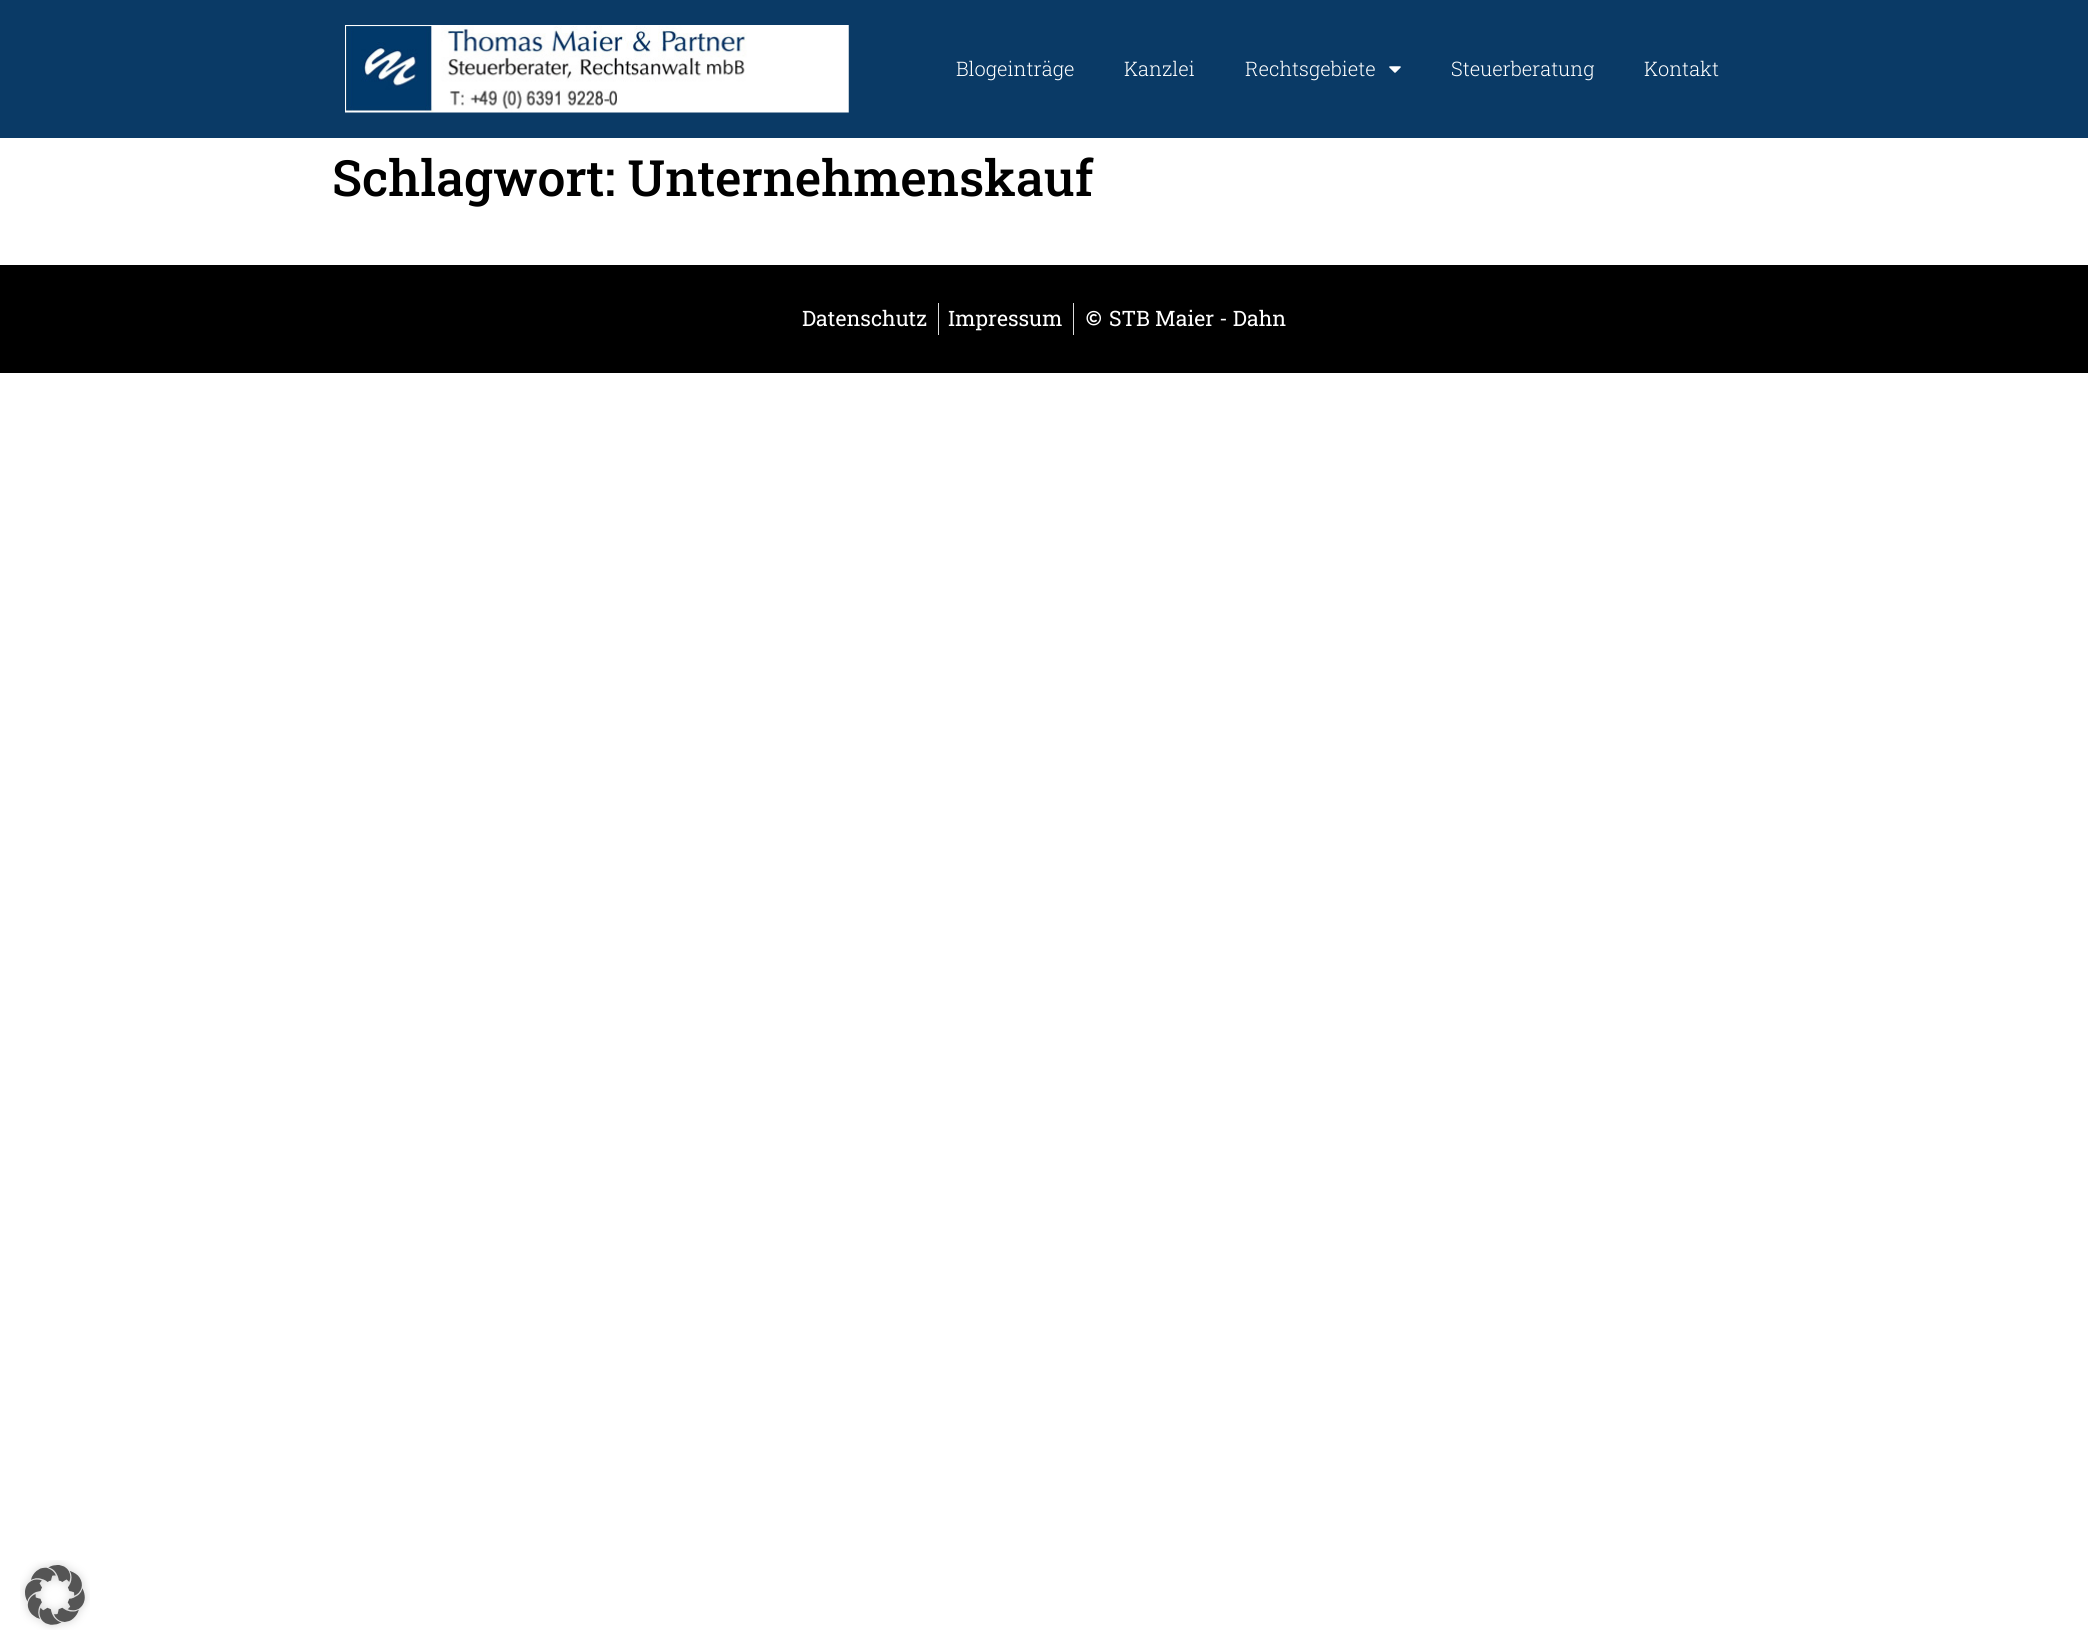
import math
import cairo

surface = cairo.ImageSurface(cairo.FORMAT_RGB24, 2088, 1649)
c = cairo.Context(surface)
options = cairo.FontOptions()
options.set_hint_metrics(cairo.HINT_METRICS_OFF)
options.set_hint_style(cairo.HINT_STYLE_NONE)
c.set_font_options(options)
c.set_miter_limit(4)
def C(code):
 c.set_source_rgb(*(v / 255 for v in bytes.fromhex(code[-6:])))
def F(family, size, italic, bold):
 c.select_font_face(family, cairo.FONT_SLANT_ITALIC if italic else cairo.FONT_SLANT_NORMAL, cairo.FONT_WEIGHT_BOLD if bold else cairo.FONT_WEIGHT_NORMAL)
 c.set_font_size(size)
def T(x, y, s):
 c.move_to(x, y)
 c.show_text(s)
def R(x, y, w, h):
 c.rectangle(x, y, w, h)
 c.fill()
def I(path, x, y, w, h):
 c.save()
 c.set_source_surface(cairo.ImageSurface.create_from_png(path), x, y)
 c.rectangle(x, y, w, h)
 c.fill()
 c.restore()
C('ffffff')
c.paint()
C('0a3a66')
R(0,0,2088,138)
I('1.png',345,25,504,88)
F('Roboto Slab Light',20,0,0)
C('ffffff')
T(956,76,'Blogeinträge')
T(1124,76,'Kanzlei')
T(1245,76,'Rechtsgebiete')
I('2.png',1389,66,12,7)
T(1451,76,'Steuerberatung')
T(1644,76,'Kontakt')
F('Roboto Slab Medium',50,0,0)
C('000000')
T(332,196,'Schlagwort: Unternehmenskauf')
R(0,265,2088,108)
F('Roboto Slab',21.25,0,0)
C('ffffff')
T(802,326,'Datenschutz')
C('dddddd')
R(938,303,1,32)
C('ffffff')
T(948,326,'Impressum')
C('dddddd')
R(1073,303,1,32)
I('3.png',1086,310,15,16)
C('ffffff')
T(1109,326,'STB Maier - Dahn')
I('4.png',20,1560,70,70)
surface.write_to_png('o.png')
